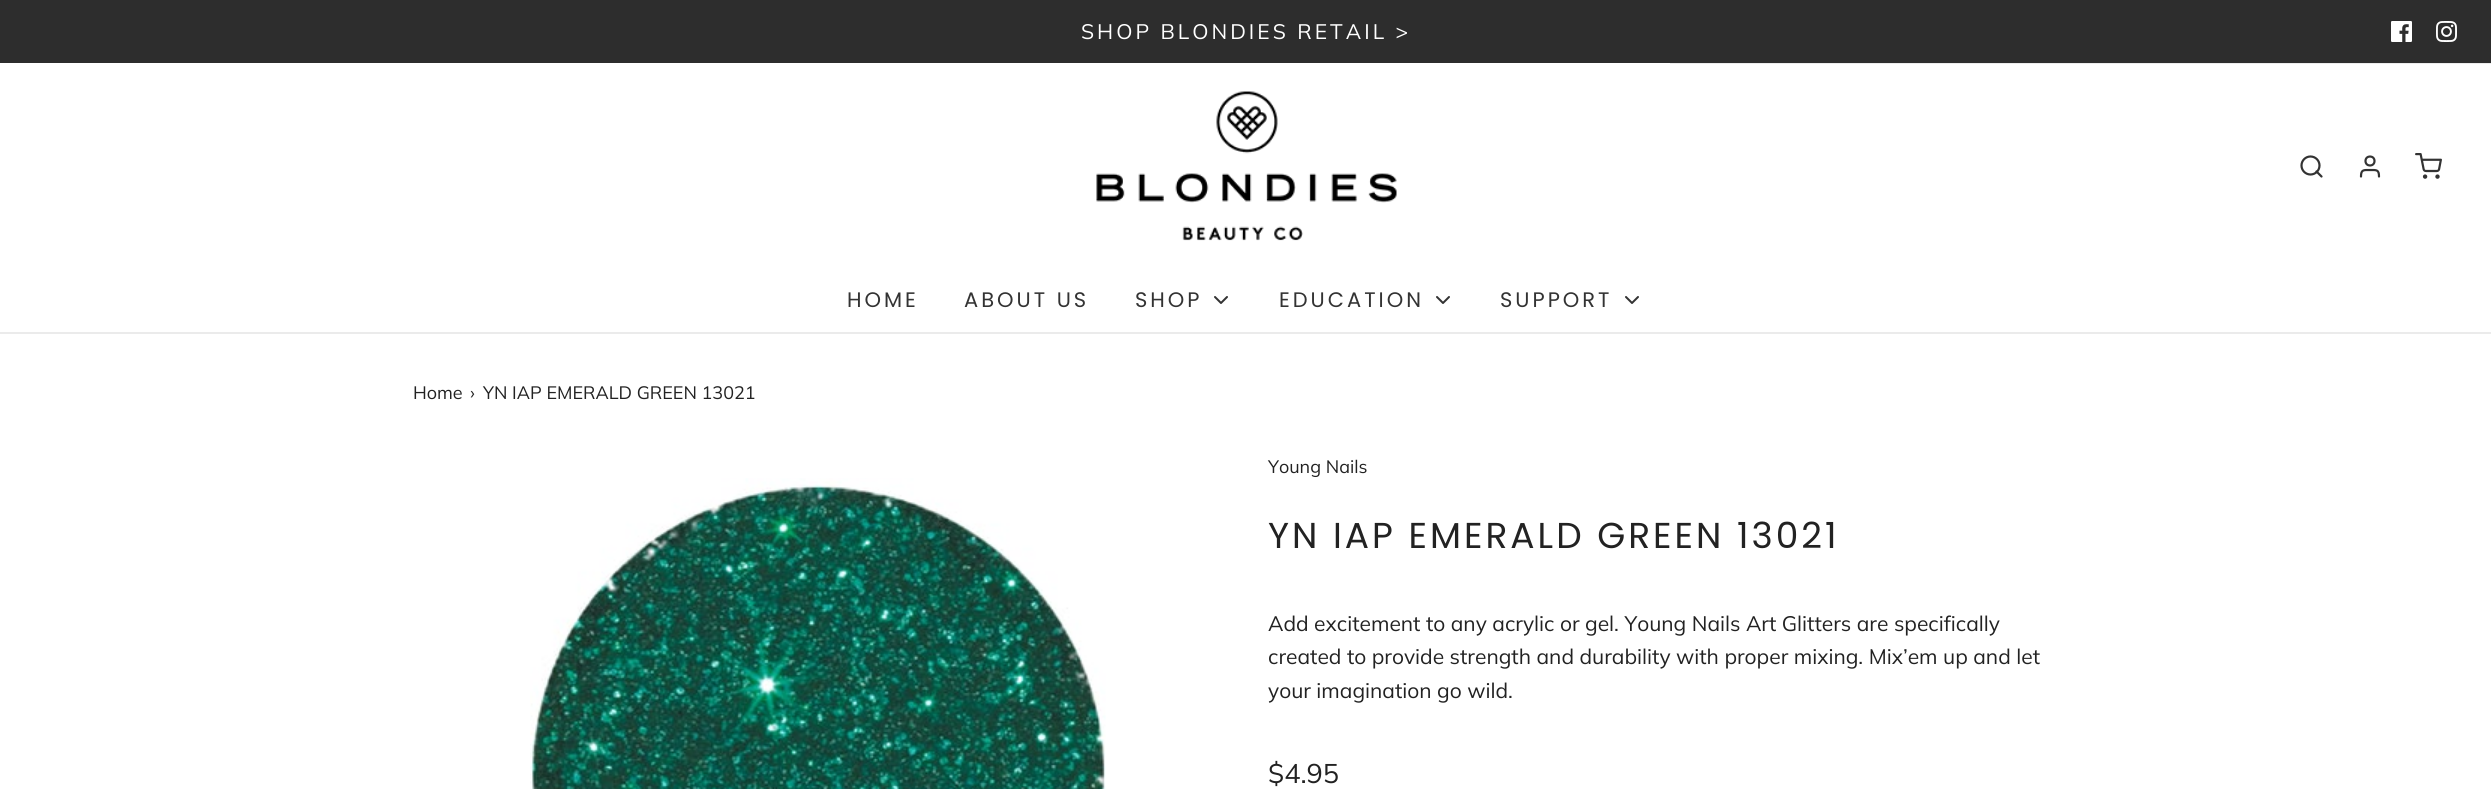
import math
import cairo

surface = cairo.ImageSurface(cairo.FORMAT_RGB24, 2491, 789)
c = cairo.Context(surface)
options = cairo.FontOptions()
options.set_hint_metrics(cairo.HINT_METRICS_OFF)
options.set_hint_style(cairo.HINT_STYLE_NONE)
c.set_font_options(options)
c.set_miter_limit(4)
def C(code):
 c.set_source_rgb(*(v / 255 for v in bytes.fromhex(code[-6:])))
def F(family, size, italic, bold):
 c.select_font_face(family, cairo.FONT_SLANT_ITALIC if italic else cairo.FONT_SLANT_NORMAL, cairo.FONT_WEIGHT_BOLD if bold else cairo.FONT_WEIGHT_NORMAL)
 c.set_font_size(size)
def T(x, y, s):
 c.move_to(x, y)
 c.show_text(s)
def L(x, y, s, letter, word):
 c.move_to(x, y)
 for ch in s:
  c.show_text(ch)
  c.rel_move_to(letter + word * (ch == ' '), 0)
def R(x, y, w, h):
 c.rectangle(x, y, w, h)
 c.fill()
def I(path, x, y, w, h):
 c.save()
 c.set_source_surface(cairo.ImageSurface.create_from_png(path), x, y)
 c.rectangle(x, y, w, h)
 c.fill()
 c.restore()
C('ffffff')
c.paint()
C('2d2d2d')
R(0,0,2491,63)
F('Muli',21,0,0)
C('ffffff')
L(1081,39,'SHOP BLONDIES RETAIL >',3,0)
I('1.png',2391,21,21,21)
I('2.png',2436,21,21,21)
C('ebebeb')
R(0,332,2491,2)
R(1670,63,821,1)
I('3.png',1096,91,301,150)
c.arc(2310.5,165.5,9,0,2 * math.pi)
C('333333')
c.set_line_width(2.2)
c.stroke()
c.new_path()
c.move_to(2321.5,176.5)
c.line_to(2316.5,171.5)
c.set_line_cap(cairo.LINE_CAP_ROUND)
c.set_line_join(cairo.LINE_JOIN_ROUND)
c.stroke()
c.new_path()
c.move_to(2379,176.5)
c.curve_to(2379,169.5,2376.5,170,2370,170)
c.curve_to(2363.5,170,2361,169.5,2361,176.5)
c.stroke()
c.arc(2370,161,4.5,0,2 * math.pi)
c.set_line_cap(cairo.LINE_CAP_BUTT)
c.set_line_join(cairo.LINE_JOIN_MITER)
c.stroke()
I('4.png',2415,153,27,26)
F('Poppins',21,0,0)
L(847,307,'HOME',3,0)
L(964,307,'ABOUT US',3,0)
L(1135,307,'SHOP',3,0)
c.new_path()
c.move_to(1215,297)
c.line_to(1221,303)
c.line_to(1227,297)
c.set_line_width(2)
c.set_line_cap(cairo.LINE_CAP_ROUND)
c.set_line_join(cairo.LINE_JOIN_ROUND)
c.stroke()
L(1279,307,'EDUCATION',3,0)
c.new_path()
c.move_to(1437,297)
c.line_to(1443,303)
c.line_to(1449,297)
c.stroke()
L(1500,307,'SUPPORT',3,0)
c.new_path()
c.move_to(1626,297)
c.line_to(1632,303)
c.line_to(1638,297)
c.stroke()
F('Muli',18,0,0)
C('222222')
T(413,399,'Home')
T(470,399,'›')
T(483,399,'YN IAP EMERALD GREEN 13021')
I('5.png',530,478,576,311)
T(1268,473,'Young Nails')
F('Poppins',36,0,0)
L(1268,548,'YN IAP EMERALD GREEN 13021',3,0)
F('Muli',21,0,0)
T(1268,631,'Add excitement to any acrylic or gel. Young Nails Art Glitters are specifically')
T(1268,664,'created to provide strength and durability with proper mixing. Mix’em up and let')
T(1268,698,'your imagination go wild.')
F('Muli',27,0,0)
T(1268,783,'$4.95')
surface.write_to_png('o.png')
